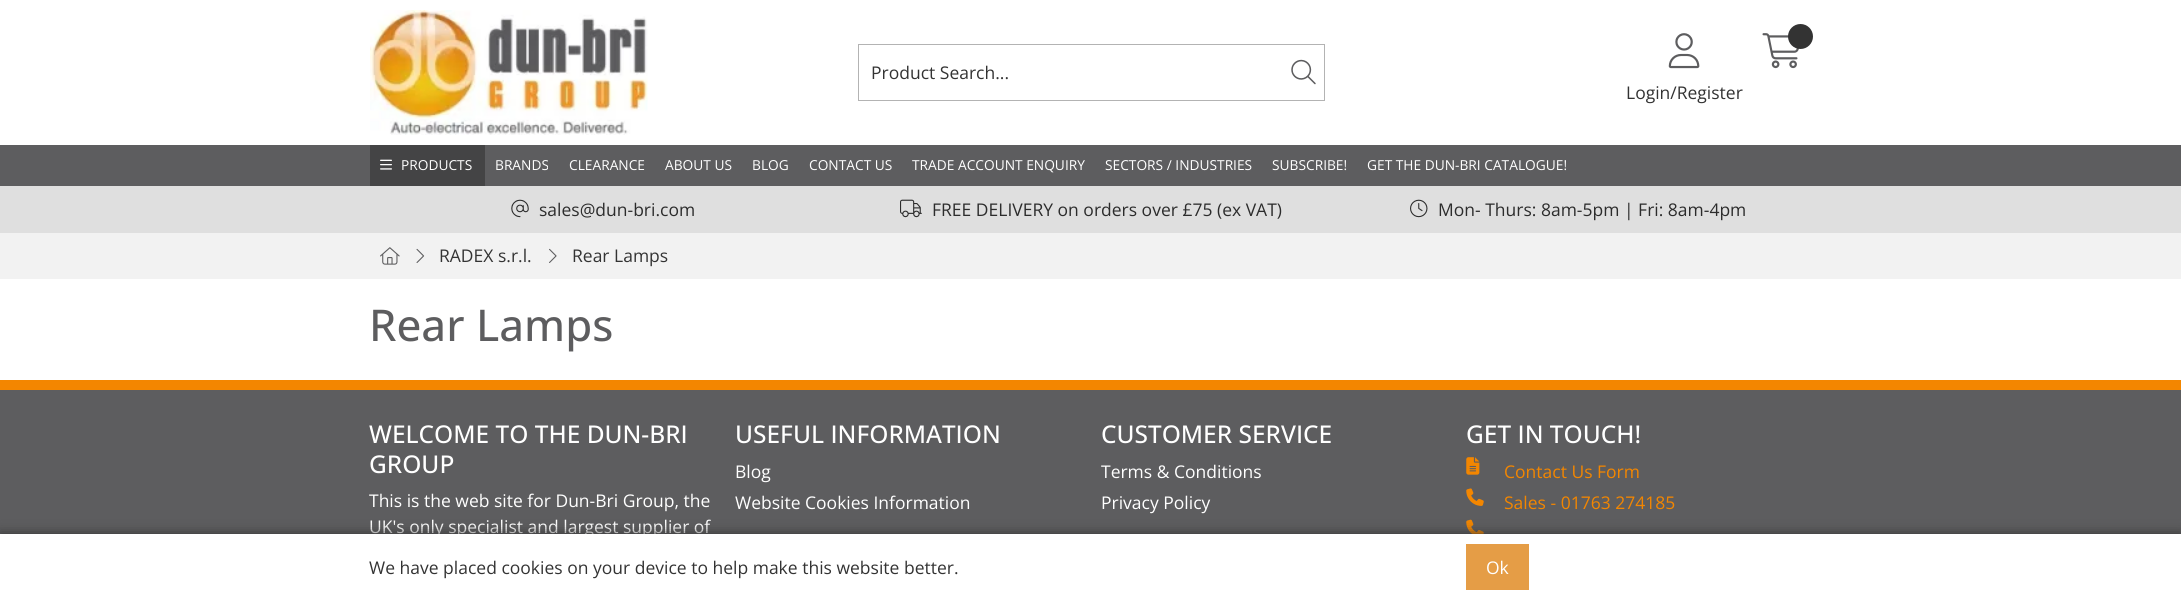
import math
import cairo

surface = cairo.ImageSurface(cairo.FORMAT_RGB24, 2181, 599)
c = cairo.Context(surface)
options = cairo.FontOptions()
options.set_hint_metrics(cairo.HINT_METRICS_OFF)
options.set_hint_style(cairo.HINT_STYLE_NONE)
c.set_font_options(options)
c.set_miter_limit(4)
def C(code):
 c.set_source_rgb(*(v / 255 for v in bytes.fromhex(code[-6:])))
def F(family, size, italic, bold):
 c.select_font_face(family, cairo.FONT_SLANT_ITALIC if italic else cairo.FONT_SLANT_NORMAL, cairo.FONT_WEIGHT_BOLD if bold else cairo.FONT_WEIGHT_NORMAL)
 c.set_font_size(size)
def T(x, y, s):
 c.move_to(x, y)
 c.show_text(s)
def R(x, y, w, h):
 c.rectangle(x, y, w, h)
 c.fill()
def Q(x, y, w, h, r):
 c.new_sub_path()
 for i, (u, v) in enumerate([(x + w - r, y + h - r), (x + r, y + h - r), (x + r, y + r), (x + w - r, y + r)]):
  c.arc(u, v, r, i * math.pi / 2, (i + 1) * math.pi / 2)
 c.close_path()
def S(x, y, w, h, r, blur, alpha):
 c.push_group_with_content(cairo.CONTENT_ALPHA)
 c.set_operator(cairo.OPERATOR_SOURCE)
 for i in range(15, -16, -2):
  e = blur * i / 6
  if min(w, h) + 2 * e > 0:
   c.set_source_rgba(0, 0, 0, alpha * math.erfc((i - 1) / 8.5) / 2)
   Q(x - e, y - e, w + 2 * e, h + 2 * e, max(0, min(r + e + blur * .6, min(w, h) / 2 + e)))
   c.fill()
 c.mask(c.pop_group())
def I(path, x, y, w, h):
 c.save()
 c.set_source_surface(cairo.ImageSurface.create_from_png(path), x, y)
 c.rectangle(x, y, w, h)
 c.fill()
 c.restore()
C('ffffff')
c.paint()
I('1.png',370,10,278,125)
c.rectangle(858.5,44.5,466,56)
C('b3b3b3')
c.set_line_width(1)
c.stroke()
F('Open Sans',17.5,0,0)
C('333333')
T(871,79,'Product Search...')
I('2.png',1291,59,25,26)
I('3.png',1762,33,37,36)
c.arc(1800.5,36.5,12.5,0,2 * math.pi)
c.fill()
I('4.png',1668,33,32,36)
T(1626,99,'Login/Register')
C('5d5d5f')
R(0,145,2181,41)
C('444445')
R(370,145,115,41)
I('5.png',380,159,12,11)
F('Open Sans',13.75,0,0)
C('ffffff')
T(401,170,'PRODUCTS')
T(495,170,'BRANDS')
T(569,170,'CLEARANCE')
T(665,170,'ABOUT US')
T(752,170,'BLOG')
T(809,170,'CONTACT US')
T(912,170,'TRADE ACCOUNT ENQUIRY')
T(1105,170,'SECTORS / INDUSTRIES')
T(1272,170,'SUBSCRIBE!')
T(1367,170,'GET THE DUN-BRI CATALOGUE!')
C('dfdfdf')
R(0,186,2181,47)
I('6.png',511,199,18,19)
F('Open Sans',17.5,0,0)
C('2c2c2c')
T(539,216,'sales@dun-bri.com')
I('7.png',900,199,22,19)
T(932,216,'FREE DELIVERY on orders over £75 (ex VAT)')
I('8.png',1410,199,18,19)
T(1438,216,'Mon- Thurs: 8am-5pm | Fri: 8am-4pm')
C('f2f2f2')
R(0,233,2181,46)
I('9.png',380,247,20,18)
I('10.png',416,248,9,15)
C('333333')
T(439,262,'RADEX s.r.l.')
I('11.png',549,248,8,15)
T(572,262,'Rear Lamps')
F('Open Sans Medium',43.75,0,0)
C('5d5d5f')
T(369,341,'Rear Lamps')
R(0,390,2181,144)
C('f38600')
R(0,380,2181,10)
F('Open Sans Medium',24.5,0,0)
C('ffffff')
T(369,443,'WELCOME TO THE DUN-BRI')
T(369,473,'GROUP')
F('Open Sans',17.5,0,0)
T(369,507,'This is the web site for Dun-Bri Group, the')
T(369,533,'UK\'s only specialist and largest supplier of')
F('Open Sans Medium',24.5,0,0)
T(735,443,'USEFUL INFORMATION')
F('Open Sans',17.5,0,0)
T(735,478,'Blog')
T(735,509,'Website Cookies Information')
F('Open Sans Medium',24.5,0,0)
T(1101,443,'CUSTOMER SERVICE')
F('Open Sans',17.5,0,0)
T(1101,478,'Terms & Conditions')
T(1101,509,'Privacy Policy')
F('Open Sans Medium',24.5,0,0)
T(1466,443,'GET IN TOUCH!')
I('12.png',1466,457,14,18)
F('Open Sans',17.5,0,0)
C('f38600')
T(1504,478,'Contact Us Form')
I('13.png',1466,488,18,18)
T(1504,509,'Sales - 01763 274185')
I('14.png',1466,519,18,15)
C('333333')
S(0,534,2181,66,0,6,1)
C('ffffff')
R(0,534,2181,65)
C('333333')
T(369,574,'We have placed cookies on your device to help make this website better.')
C('e59d46')
R(1466,544,63,46)
C('ffffff')
T(1486,574,'Ok')
surface.write_to_png('o.png')
